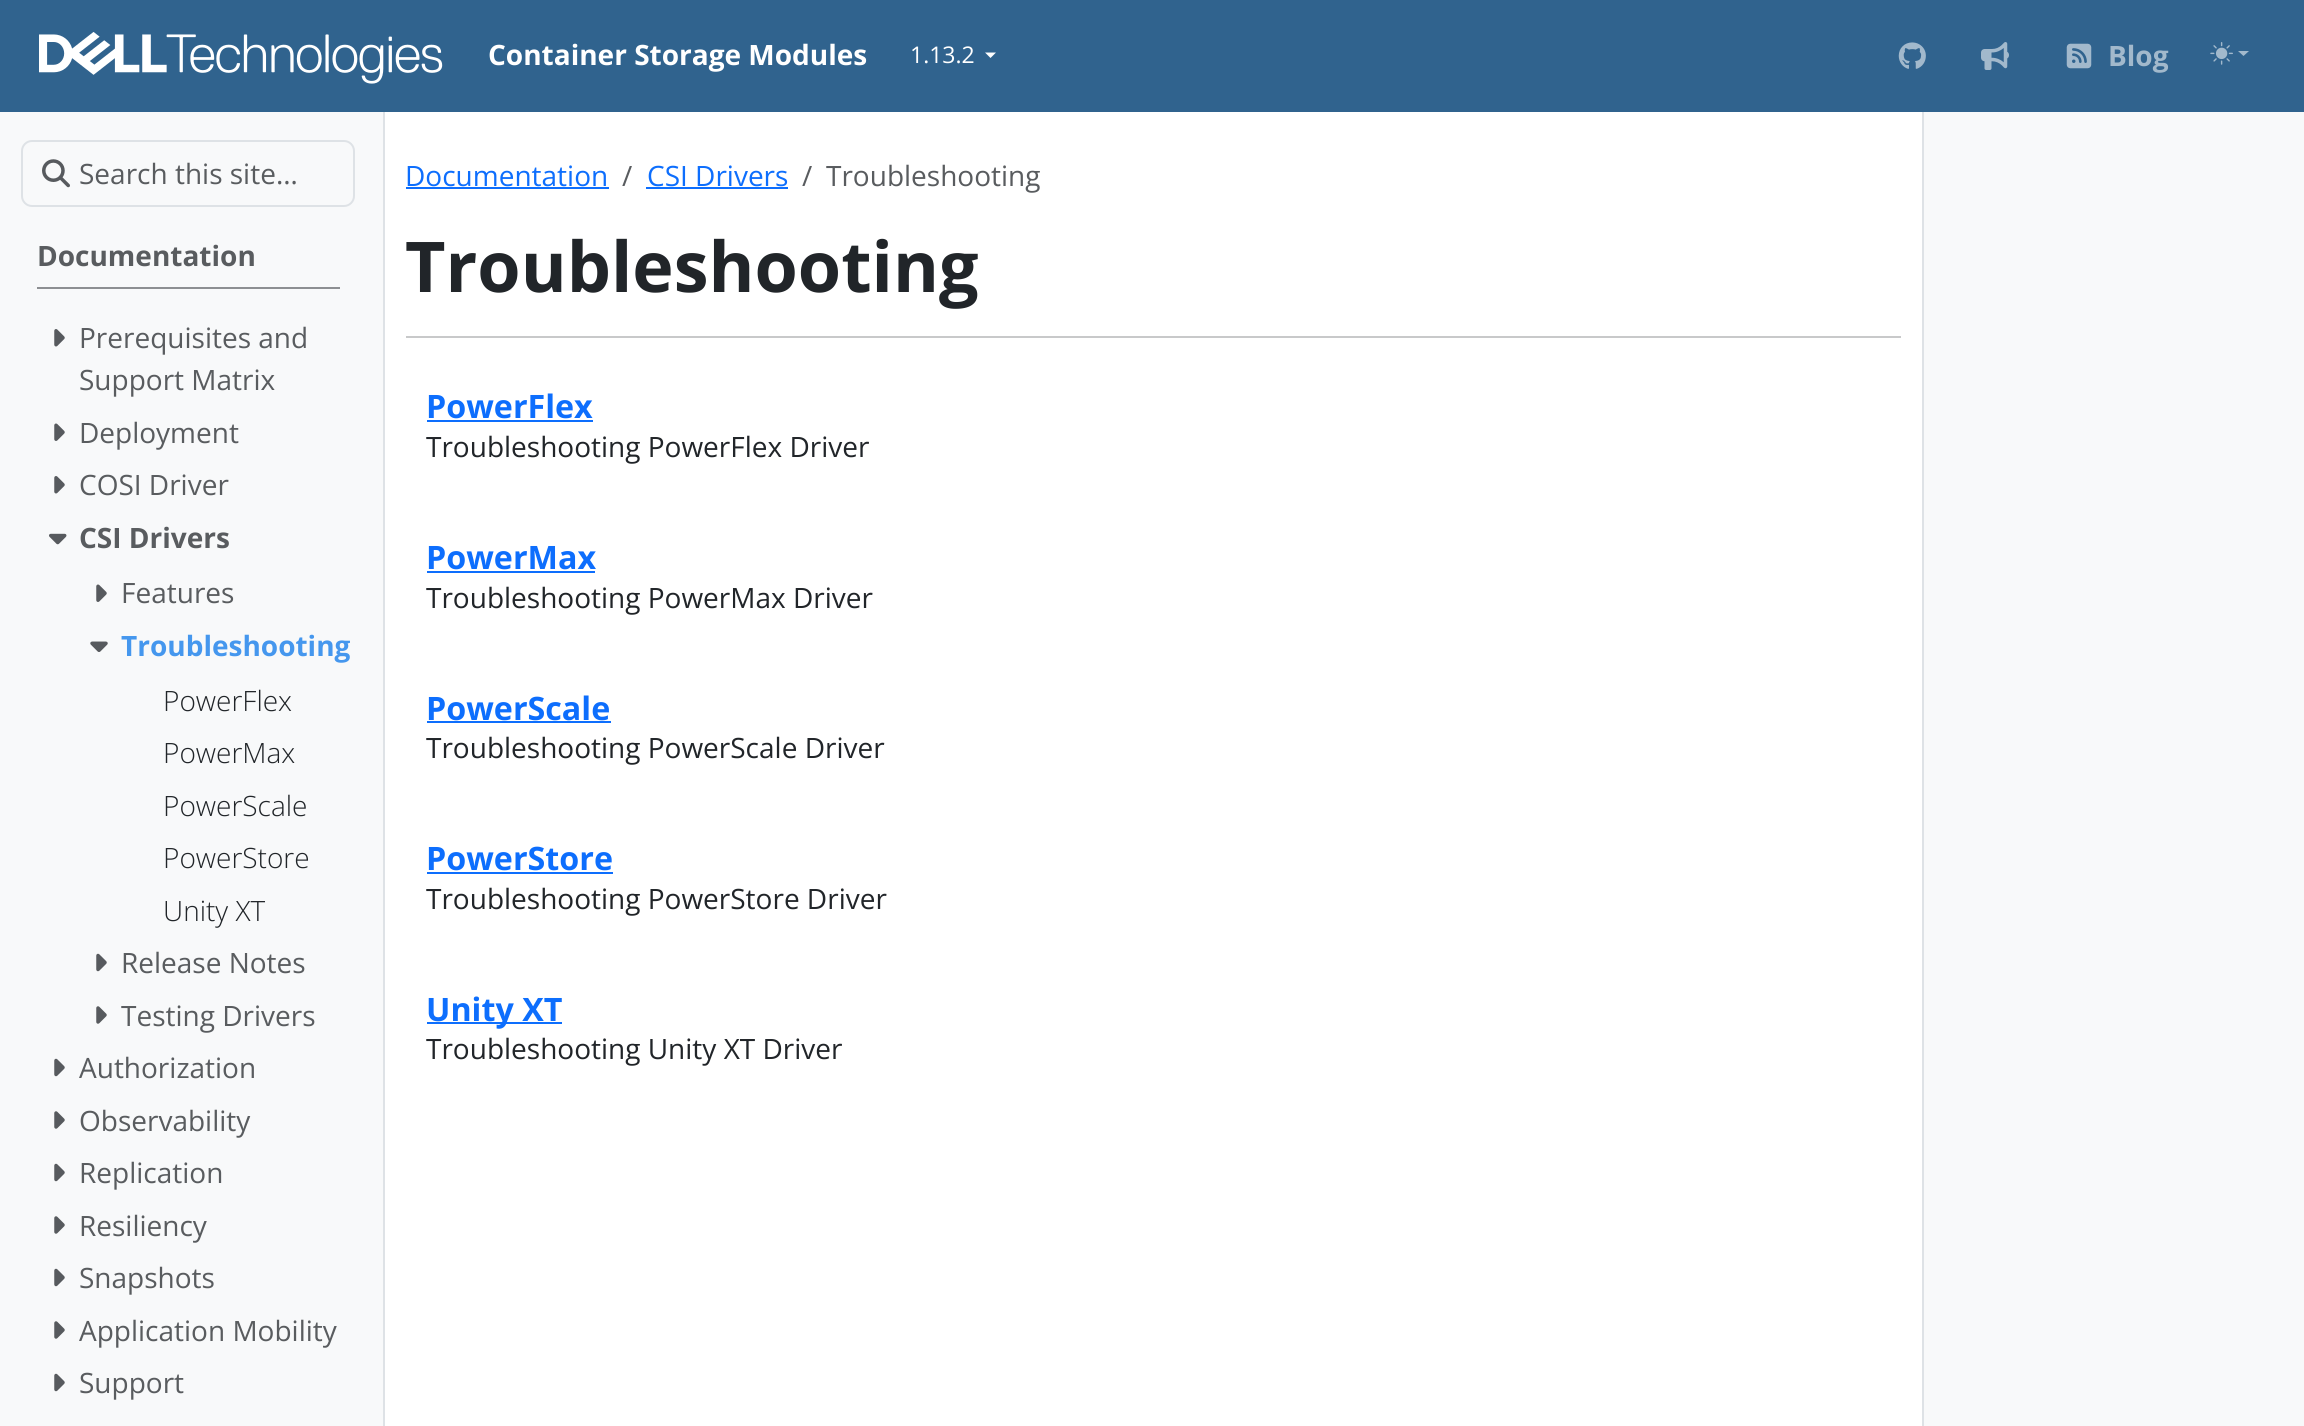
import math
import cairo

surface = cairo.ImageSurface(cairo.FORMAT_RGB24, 2304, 1426)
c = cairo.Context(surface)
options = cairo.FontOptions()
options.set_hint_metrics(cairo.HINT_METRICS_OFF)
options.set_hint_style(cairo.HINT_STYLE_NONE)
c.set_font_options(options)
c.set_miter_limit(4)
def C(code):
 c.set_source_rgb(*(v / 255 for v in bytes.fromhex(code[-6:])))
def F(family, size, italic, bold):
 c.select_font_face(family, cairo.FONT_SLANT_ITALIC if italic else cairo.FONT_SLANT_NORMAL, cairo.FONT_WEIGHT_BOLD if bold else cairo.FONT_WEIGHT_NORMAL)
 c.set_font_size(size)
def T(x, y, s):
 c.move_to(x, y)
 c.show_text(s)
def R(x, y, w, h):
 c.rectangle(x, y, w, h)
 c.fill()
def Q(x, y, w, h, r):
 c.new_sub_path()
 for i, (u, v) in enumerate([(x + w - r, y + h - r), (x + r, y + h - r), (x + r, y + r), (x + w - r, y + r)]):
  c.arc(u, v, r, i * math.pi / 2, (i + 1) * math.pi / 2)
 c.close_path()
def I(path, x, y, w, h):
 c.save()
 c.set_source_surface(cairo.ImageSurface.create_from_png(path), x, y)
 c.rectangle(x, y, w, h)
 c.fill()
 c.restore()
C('ffffff')
c.paint()
C('30638e')
R(0,0,2304,112)
I('1.png',39,32,404,52)
F('Open Sans',28,0,1)
C('ffffff')
T(488,65,'Container Storage Modules')
F('Open Sans',23,0,0)
T(910,63,'1.13.2')
c.new_path()
c.move_to(985,52.5)
c.line_to(996,52.5)
c.line_to(990.5,58)
c.close_path()
c.fill()
I('2.png',1898,42,28,27)
I('3.png',1981,42,28,28)
I('4.png',2066,43,26,26)
F('Open Sans',28,0,1)
C('a2b9cc')
T(2108,66,'Blog')
I('5.png',2210,42,23,23)
c.new_path()
c.move_to(2238,51)
c.line_to(2249,51)
c.line_to(2243.5,56)
c.close_path()
c.fill()
C('f8f9fa')
R(0,112,383,1314)
C('dee2e6')
R(383,112,2,1314)
Q(22,141,332,65,10)
c.stroke()
I('6.png',42,159,28,29)
F('Open Sans',28,0,0)
C('595c5f')
T(79,184,'Search this site…')
C('8d8f92')
R(37,287,303,2)
F('Open Sans',28,0,1)
C('595c5f')
T(37,266,'Documentation')
I('7.png',54,329,11,18)
F('Open Sans',28,0,0)
T(79,348,'Prerequisites and')
T(79,390,'Support Matrix')
I('8.png',54,423,11,18)
T(79,443,'Deployment')
I('7.png',54,476,11,18)
T(79,495,'COSI Driver')
I('9.png',49,533,18,12)
F('Open Sans',28,0,1)
T(79,548,'CSI Drivers')
I('8.png',96,584,11,18)
F('Open Sans',28,0,0)
T(121,603,'Features')
I('10.png',90,641,18,11)
F('Open Sans',28,0,1)
C('4597ee')
T(121,656,'Troubleshooting')
F('Open Sans Light',28,0,0)
C('212529')
T(163,711,'PowerFlex')
T(163,763,'PowerMax')
T(163,816,'PowerScale')
T(163,868,'PowerStore')
T(163,921,'Unity XT')
I('11.png',96,953,11,19)
F('Open Sans',28,0,0)
C('595c5f')
T(121,973,'Release Notes')
I('12.png',96,1006,11,18)
T(121,1026,'Testing Drivers')
I('11.png',54,1058,11,19)
T(79,1078,'Authorization')
I('12.png',54,1111,11,18)
T(79,1131,'Observability')
I('11.png',54,1163,11,19)
T(79,1183,'Replication')
I('12.png',54,1216,11,18)
T(79,1236,'Resiliency')
I('11.png',54,1268,11,19)
T(79,1288,'Snapshots')
I('12.png',54,1321,11,18)
T(79,1341,'Application Mobility')
I('11.png',54,1373,11,19)
T(79,1393,'Support')
C('0d6efd')
T(405,186,'Documentation')
R(406,187,203,2)
C('595c5f')
T(622,186,'/')
C('0d6efd')
T(647,186,'CSI Drivers')
R(646,187,142,2)
C('595c5f')
T(802,186,'/')
T(826,186,'Troubleshooting')
F('Open Sans',70,0,1)
C('212529')
T(405,292,'Troubleshooting')
C('c8c9ca')
R(406,336,1495,2)
F('Open Sans',32.25,0,1)
C('0d6efd')
T(426,418,'PowerFlex')
R(427,420,166,2)
F('Open Sans',28,0,0)
C('212529')
T(426,457,'Troubleshooting PowerFlex Driver')
F('Open Sans',32.25,0,1)
C('0d6efd')
T(426,569,'PowerMax')
R(427,571,168,2)
F('Open Sans',28,0,0)
C('212529')
T(426,608,'Troubleshooting PowerMax Driver')
F('Open Sans',32.25,0,1)
C('0d6efd')
T(426,720,'PowerScale')
R(427,721,184,2)
F('Open Sans',28,0,0)
C('212529')
T(426,758,'Troubleshooting PowerScale Driver')
F('Open Sans',32.25,0,1)
C('0d6efd')
T(426,870,'PowerStore')
R(427,872,186,2)
F('Open Sans',28,0,0)
C('212529')
T(426,909,'Troubleshooting PowerStore Driver')
C('0d6efd')
R(427,1022,135,2)
F('Open Sans',32.25,0,1)
T(426,1021,'Unity XT')
F('Open Sans',28,0,0)
C('212529')
T(426,1059,'Troubleshooting Unity XT Driver')
C('f8f9fa')
R(1924,112,380,1314)
C('dee2e6')
R(1922,112,2,1314)
surface.write_to_png('o.png')
